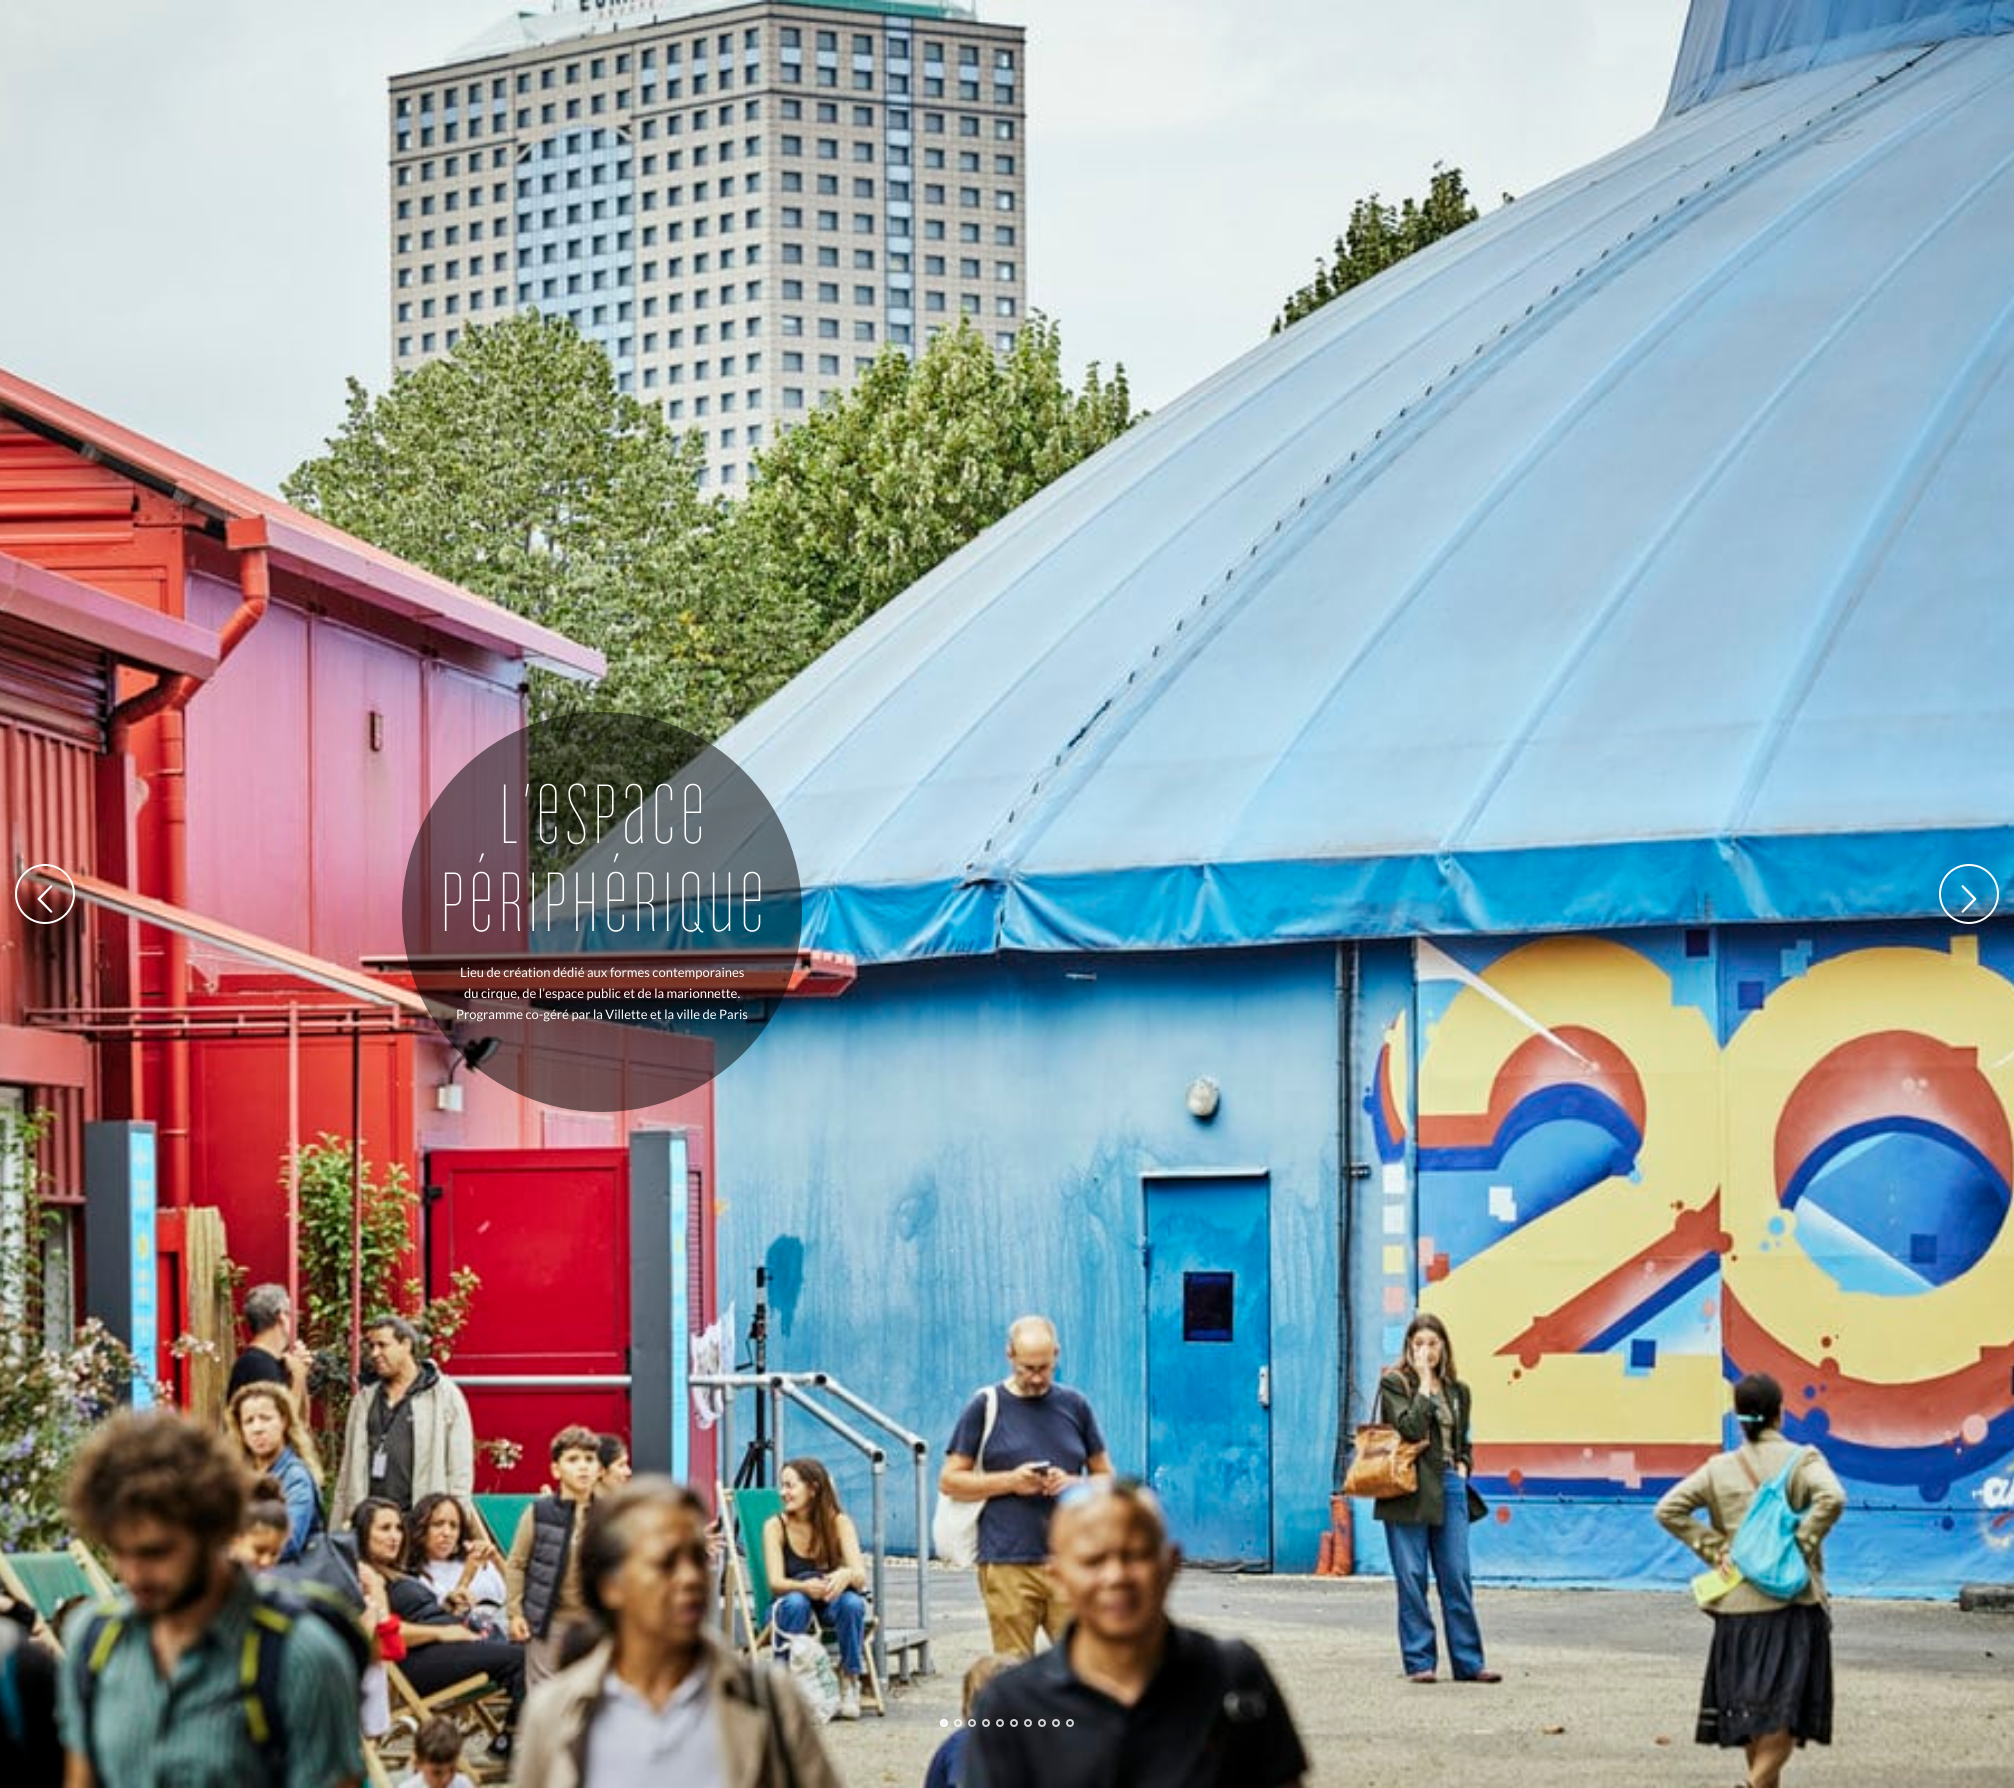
import math
import cairo

surface = cairo.ImageSurface(cairo.FORMAT_RGB24, 2014, 1788)
c = cairo.Context(surface)
options = cairo.FontOptions()
options.set_hint_metrics(cairo.HINT_METRICS_OFF)
options.set_hint_style(cairo.HINT_STYLE_NONE)
c.set_font_options(options)
c.set_miter_limit(4)
def C(code):
 c.set_source_rgb(*(v / 255 for v in bytes.fromhex(code[-6:])))
def F(family, size, italic, bold):
 c.select_font_face(family, cairo.FONT_SLANT_ITALIC if italic else cairo.FONT_SLANT_NORMAL, cairo.FONT_WEIGHT_BOLD if bold else cairo.FONT_WEIGHT_NORMAL)
 c.set_font_size(size)
def T(x, y, s):
 c.move_to(x, y)
 c.show_text(s)
def I(path, x, y, w, h):
 c.save()
 c.set_source_surface(cairo.ImageSurface.create_from_png(path), x, y)
 c.rectangle(x, y, w, h)
 c.fill()
 c.restore()
C('ffffff')
c.paint()
I('1.png',0,0,2014,1788)
c.set_source_rgba(0,0,0,0.5)
c.arc(602,912,200,0,2 * math.pi)
c.fill()
F('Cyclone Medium',100,0,0)
C('ffffff')
T(497,847,'L’espace')
T(438,935,'périphérique')
F('Lato',13,0,0)
T(460,977,'Lieu de création dédié aux formes contemporaines')
T(464,998,'du cirque, de l’espace public et de la marionnette.')
T(456,1019,'Programme co-géré par la Villette et la ville de Paris')
c.new_path()
c.arc(45,894,29,0,2 * math.pi)
c.stroke()
I('2.png',37,885,16,28)
c.arc(1969,894,29,0,2 * math.pi)
c.stroke()
I('3.png',1961,885,16,28)
c.set_source_rgba(1,1,1,0.8)
c.arc(944,1723,4,0,2 * math.pi)
c.fill()
c.arc(944,1723,3,0,2 * math.pi)
c.stroke()
c.arc(958,1723,3,0,2 * math.pi)
c.stroke()
c.arc(972,1723,3,0,2 * math.pi)
c.stroke()
c.arc(986,1723,3,0,2 * math.pi)
c.stroke()
c.arc(1000,1723,3,0,2 * math.pi)
c.stroke()
c.arc(1014,1723,3,0,2 * math.pi)
c.stroke()
c.arc(1028,1723,3,0,2 * math.pi)
c.stroke()
c.arc(1042,1723,3,0,2 * math.pi)
c.stroke()
c.arc(1056,1723,3,0,2 * math.pi)
c.stroke()
c.arc(1070,1723,3,0,2 * math.pi)
c.stroke()
surface.write_to_png('o.png')
